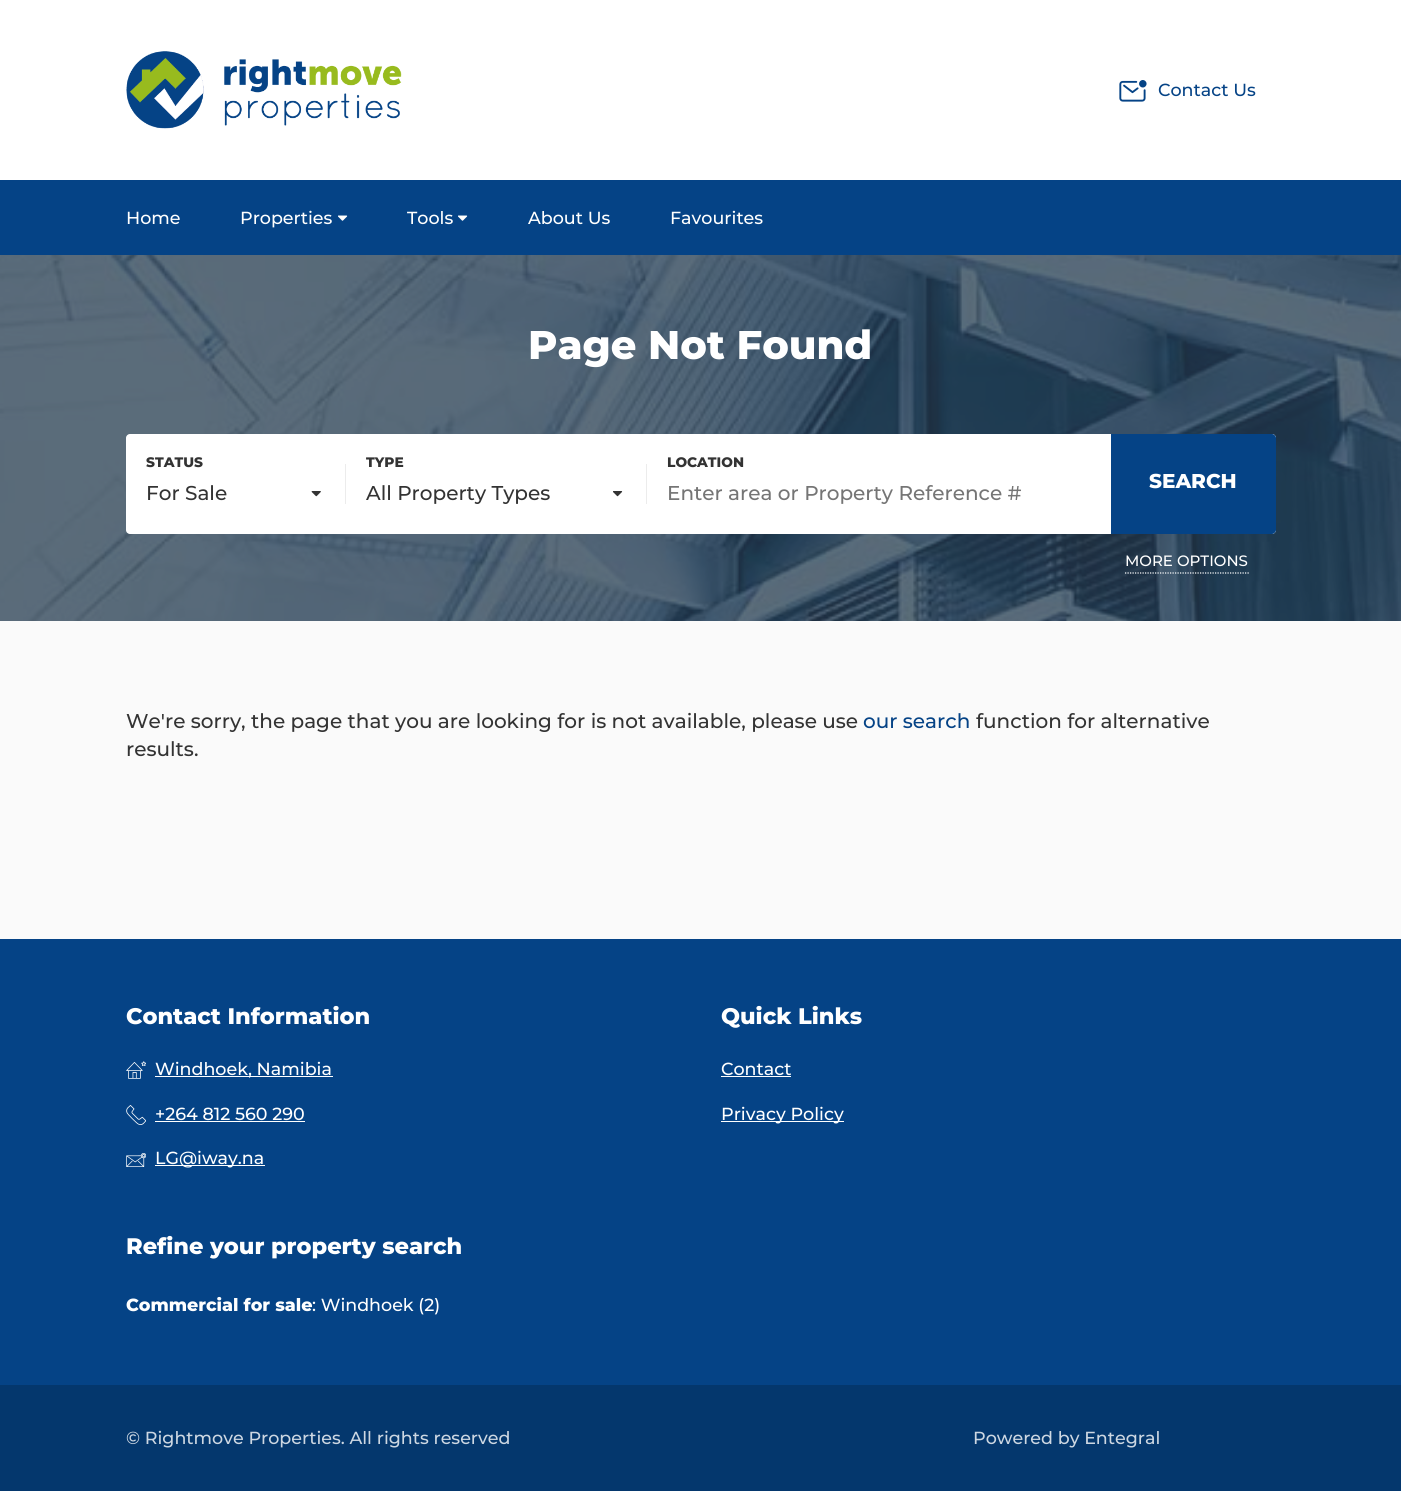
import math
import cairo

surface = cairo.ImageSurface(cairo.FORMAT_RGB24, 1401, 1491)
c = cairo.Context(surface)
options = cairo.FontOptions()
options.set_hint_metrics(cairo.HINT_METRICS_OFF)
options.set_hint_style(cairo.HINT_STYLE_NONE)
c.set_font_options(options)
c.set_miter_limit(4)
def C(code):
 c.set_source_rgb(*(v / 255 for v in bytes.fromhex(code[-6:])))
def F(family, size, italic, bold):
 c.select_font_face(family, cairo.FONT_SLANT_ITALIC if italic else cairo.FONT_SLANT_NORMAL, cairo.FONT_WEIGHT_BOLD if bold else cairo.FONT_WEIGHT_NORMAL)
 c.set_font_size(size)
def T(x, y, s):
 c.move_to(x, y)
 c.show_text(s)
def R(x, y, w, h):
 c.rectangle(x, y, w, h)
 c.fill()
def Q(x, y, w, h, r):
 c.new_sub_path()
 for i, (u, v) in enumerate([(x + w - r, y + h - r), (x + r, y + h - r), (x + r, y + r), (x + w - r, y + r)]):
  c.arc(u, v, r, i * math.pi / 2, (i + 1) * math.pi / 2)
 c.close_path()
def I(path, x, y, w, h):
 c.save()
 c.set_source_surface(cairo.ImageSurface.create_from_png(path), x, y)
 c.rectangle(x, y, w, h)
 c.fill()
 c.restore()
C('ffffff')
c.paint()
I('1.png',126,51,276,78)
I('2.png',1119,80,28,22)
F('Montserrat Medium',17.5,0,0)
C('054386')
T(1158,96,'Contact Us')
R(0,180,1401,75)
C('ffffff')
T(126,224,'Home')
T(240,224,'Properties')
I('3.png',338,215,10,6)
T(407,224,'Tools')
I('3.png',458,215,10,6)
T(528,224,'About Us')
T(670,224,'Favourites')
I('4.png',0,255,1401,366)
F('Montserrat ExtraBold',40,0,0)
T(528,359,'Page Not Found')
Q(126,434,1150,100,4)
c.fill()
F('Montserrat ExtraBold',13.75,0,0)
C('333333')
T(146,467,'STATUS')
F('Montserrat Medium',20,0,0)
T(146,500,'For Sale')
I('5.png',311,491,10,6)
C('ececec')
R(345,464,1,40)
F('Montserrat ExtraBold',13.75,0,0)
C('333333')
T(366,467,'TYPE')
F('Montserrat Medium',20,0,0)
T(366,500,'All Property Types')
I('6.png',613,491,10,6)
C('ececec')
R(646,464,1,40)
F('Montserrat ExtraBold',13.75,0,0)
C('333333')
T(667,467,'LOCATION')
F('Montserrat Medium',20,0,0)
C('757575')
T(667,500,'Enter area or Property Reference #')
C('054386')
c.new_path()
c.move_to(1111,434)
c.line_to(1272,434)
c.curve_to(1274,434,1276,436,1276,438)
c.line_to(1276,530)
c.curve_to(1276,532,1274,534,1272,534)
c.line_to(1111,534)
c.close_path()
c.fill()
F('Montserrat ExtraBold',20,0,0)
C('ffffff')
T(1149,488,'SEARCH')
c.new_path()
c.move_to(1125,573)
c.line_to(1249,573)
c.set_line_width(1.2)
c.set_dash([1.25,1.25])
c.stroke()
F('Montserrat Medium',15,0,0)
T(1125,566,'MORE OPTIONS')
C('fafafa')
R(0,621,1401,318)
F('Montserrat Medium',20,0,0)
C('333333')
T(126,728,'We\'re sorry, the page that you are looking for is not available, please use')
C('054386')
T(863,728,'our search')
C('333333')
T(976,728,'function for alternative')
T(126,756,'results.')
C('054386')
R(0,939,1401,446)
F('Montserrat ExtraBold',22.5,0,0)
C('ffffff')
T(126,1024,'Contact Information')
I('7.png',126,1061,20,18)
R(155,1076,178,1)
F('Montserrat Medium',17.5,0,0)
T(155,1075,'Windhoek, Namibia')
I('8.png',126,1105,20,20)
T(155,1120,'+264 812 560 290')
R(155,1121,150,1)
I('9.png',126,1153,20,14)
R(155,1165,110,1)
T(155,1164,'LG@iway.na')
F('Montserrat ExtraBold',22.5,0,0)
T(721,1024,'Quick Links')
F('Montserrat Medium',17.5,0,0)
T(721,1075,'Contact')
R(721,1076,70,1)
R(721,1121,123,1)
T(721,1120,'Privacy Policy')
F('Montserrat ExtraBold',22.5,0,0)
T(126,1254,'Refine your property search')
F('Montserrat ExtraBold',17.5,0,0)
T(126,1311,'Commercial for sale')
F('Montserrat Medium',17.5,0,0)
T(312,1311,': Windhoek (2)')
C('04376d')
R(0,1385,1401,106)
C('cdd7e2')
T(126,1444,'© Rightmove Properties. All rights reserved')
T(973,1444,'Powered by Entegral')
surface.write_to_png('o.png')
